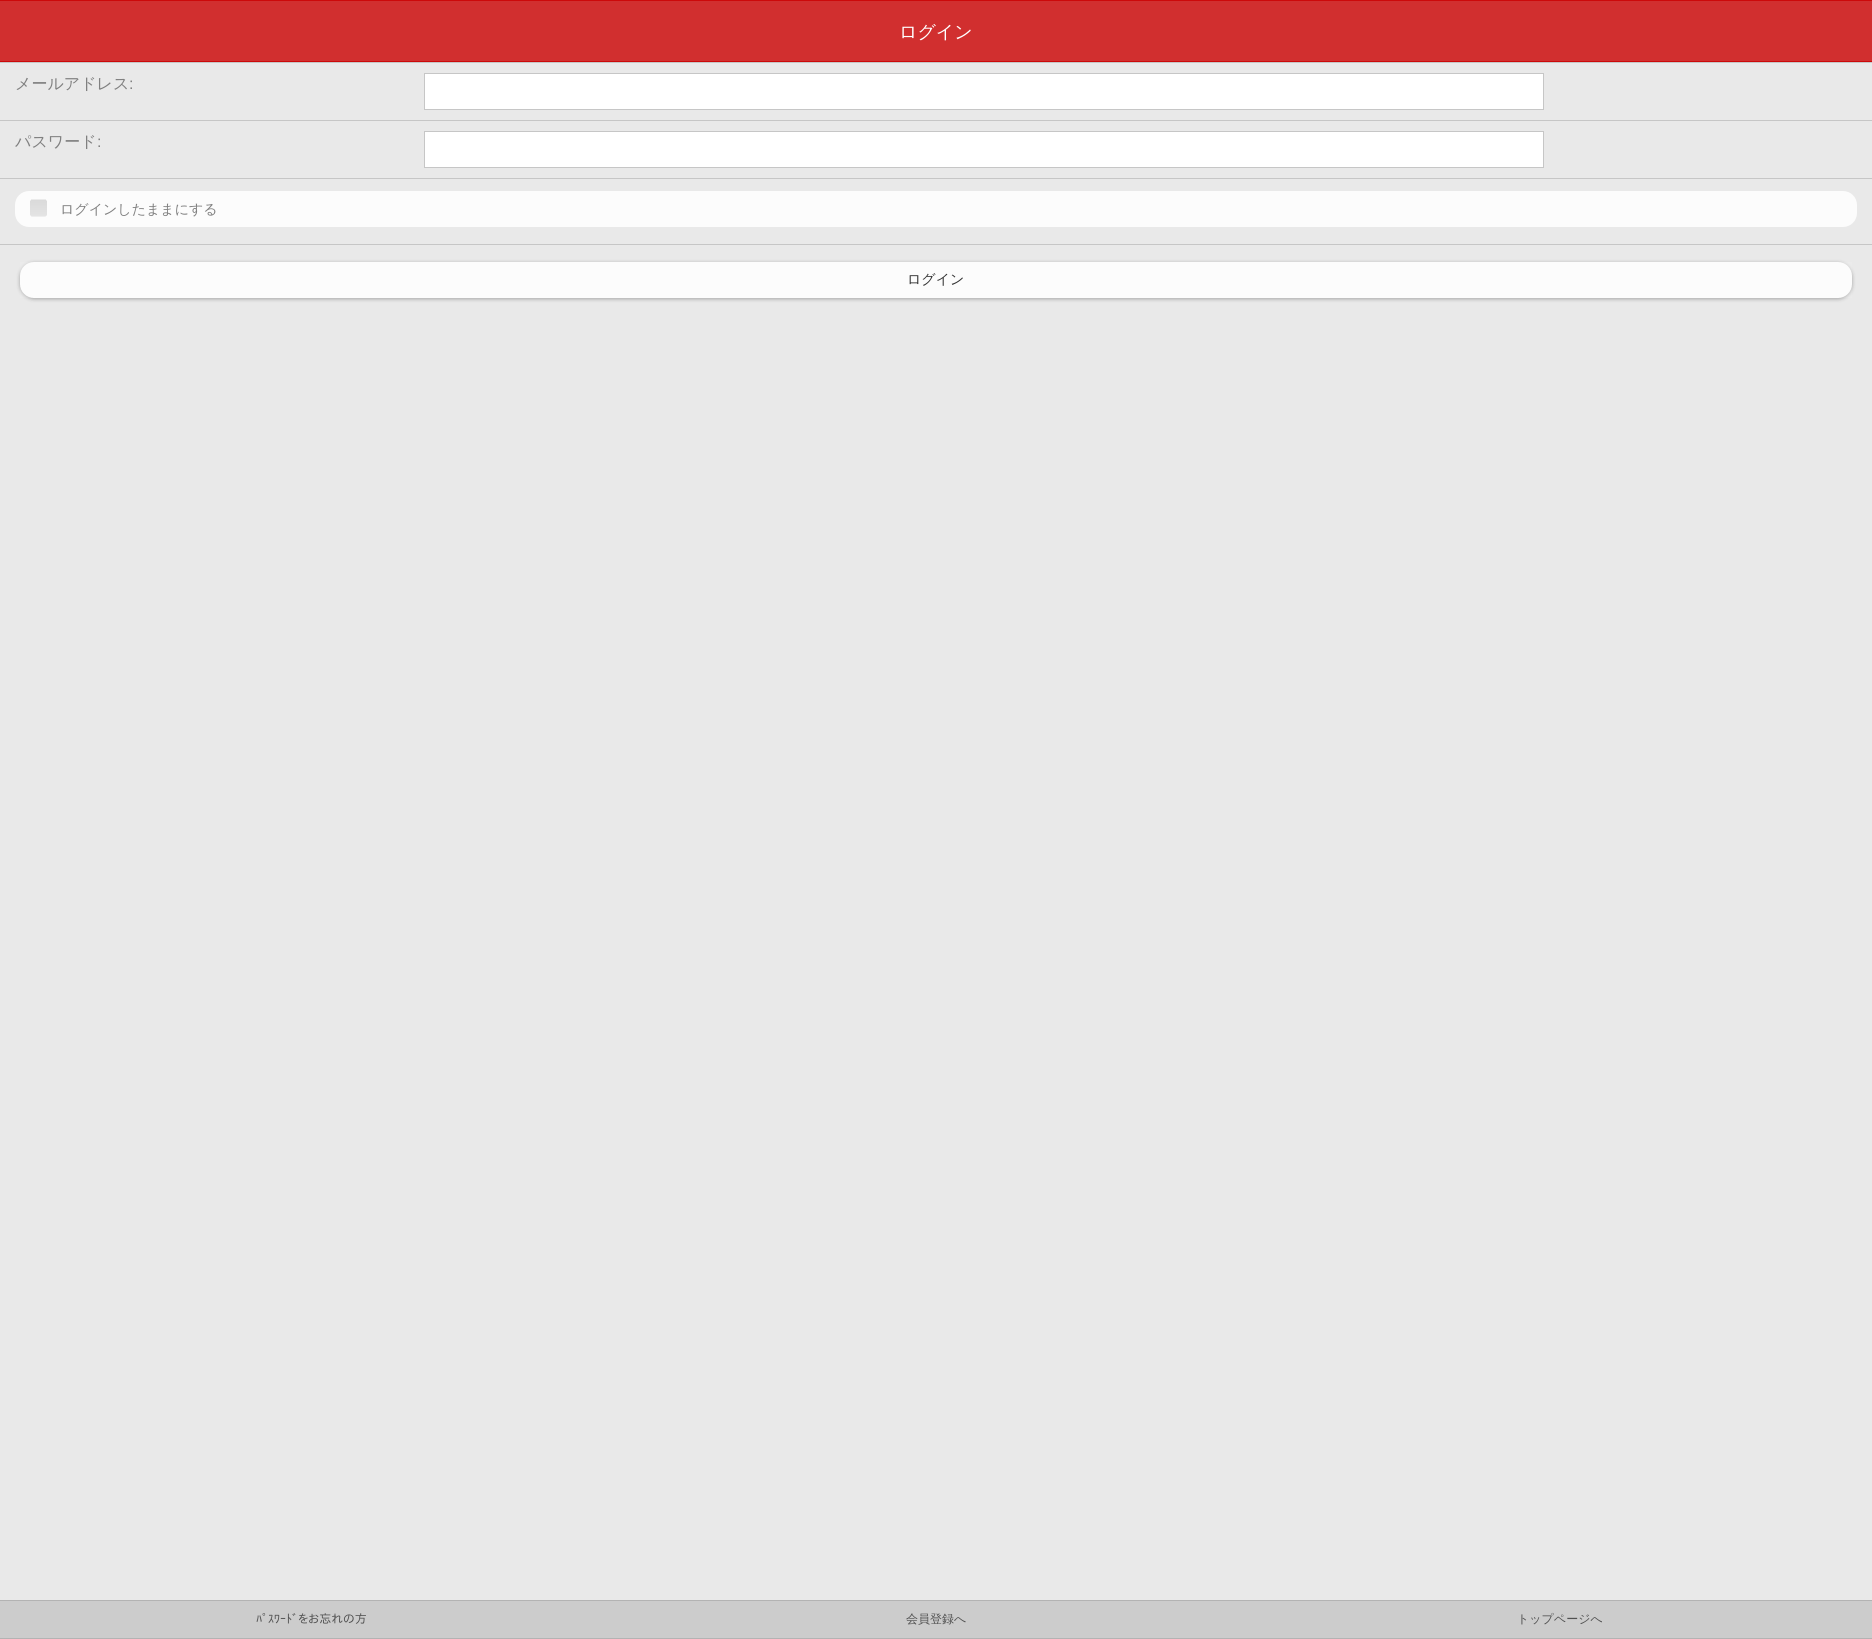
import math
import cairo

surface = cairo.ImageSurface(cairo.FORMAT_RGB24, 1872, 1639)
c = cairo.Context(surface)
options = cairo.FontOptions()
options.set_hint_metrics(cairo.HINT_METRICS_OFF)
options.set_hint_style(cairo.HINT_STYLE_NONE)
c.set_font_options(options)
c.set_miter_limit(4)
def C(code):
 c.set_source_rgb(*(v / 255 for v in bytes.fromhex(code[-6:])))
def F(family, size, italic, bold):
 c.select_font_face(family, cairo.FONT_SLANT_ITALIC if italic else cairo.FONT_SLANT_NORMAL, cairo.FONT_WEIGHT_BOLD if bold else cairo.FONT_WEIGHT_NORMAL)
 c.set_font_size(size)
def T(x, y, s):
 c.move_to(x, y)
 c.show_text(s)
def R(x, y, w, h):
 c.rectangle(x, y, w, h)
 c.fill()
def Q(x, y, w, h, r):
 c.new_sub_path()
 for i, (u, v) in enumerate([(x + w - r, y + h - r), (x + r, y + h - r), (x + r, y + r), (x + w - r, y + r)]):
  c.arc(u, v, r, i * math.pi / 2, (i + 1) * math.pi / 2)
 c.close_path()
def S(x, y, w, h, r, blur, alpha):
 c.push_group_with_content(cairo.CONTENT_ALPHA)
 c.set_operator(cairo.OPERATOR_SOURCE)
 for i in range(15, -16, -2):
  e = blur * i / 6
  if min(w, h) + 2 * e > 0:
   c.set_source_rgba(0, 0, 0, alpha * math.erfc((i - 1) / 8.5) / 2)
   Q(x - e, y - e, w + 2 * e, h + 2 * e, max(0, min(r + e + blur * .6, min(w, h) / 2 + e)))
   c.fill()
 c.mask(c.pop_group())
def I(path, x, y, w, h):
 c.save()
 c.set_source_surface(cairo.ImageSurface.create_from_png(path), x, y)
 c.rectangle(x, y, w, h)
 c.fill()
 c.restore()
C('e9e9e9')
c.paint()
C('d12f2f')
R(0,1,1872,60)
C('cc090a')
R(0,0,1872,1)
R(0,61,1872,1)
F('WenQuanYi Zen Hei Medium',18,0,0)
C('ffffff')
T(899,38,'ログイン')
C('c6c6c6')
R(0,62,1872,1)
F('WenQuanYi Zen Hei Medium',16,0,0)
C('808080')
T(15,89,'メールアドレス')
F('Liberation Sans',16,0,0)
T(129,89,':')
C('ffffff')
c.rectangle(424.5,73.5,1119,36)
c.fill_preserve()
C('c6c6c6')
c.set_line_width(1)
c.stroke()
R(0,120,1872,1)
F('WenQuanYi Zen Hei Medium',16,0,0)
C('808080')
T(15,147,'パスワード')
F('Liberation Sans',16,0,0)
T(97,147,':')
C('ffffff')
c.rectangle(424.5,131.5,1119,36)
c.fill_preserve()
C('c6c6c6')
c.stroke()
R(0,178,1872,1)
C('fcfcfc')
Q(15,191,1842,36,14)
c.fill()
I('1.png',30,199,17,18)
F('WenQuanYi Zen Hei Medium',14,0,0)
C('808080')
T(60,214,'ログインしたままにする')
C('c6c6c6')
R(0,244,1872,1)
C('000000')
S(20,263,1832,36,14,2,.3)
C('fcfcfc')
Q(20,262,1832,36,14)
c.fill()
c.set_source_rgba(1,1,1,0.1)
R(20,262,1832,36)
C('333333')
T(907,284,'ログイン')
C('cccccc')
R(0,1601,1872,37)
C('b3b3b3')
R(0,1600,1872,1)
R(0,1638,1872,1)
F('IPAPGothic',12,0,0)
C('515151')
T(256,1623,'ﾊﾟｽﾜｰﾄﾞをお忘れの方')
F('WenQuanYi Zen Hei Medium',12,0,0)
T(906,1623,'会員登録へ')
T(1517,1623,'トップページへ')
surface.write_to_png('o.png')
